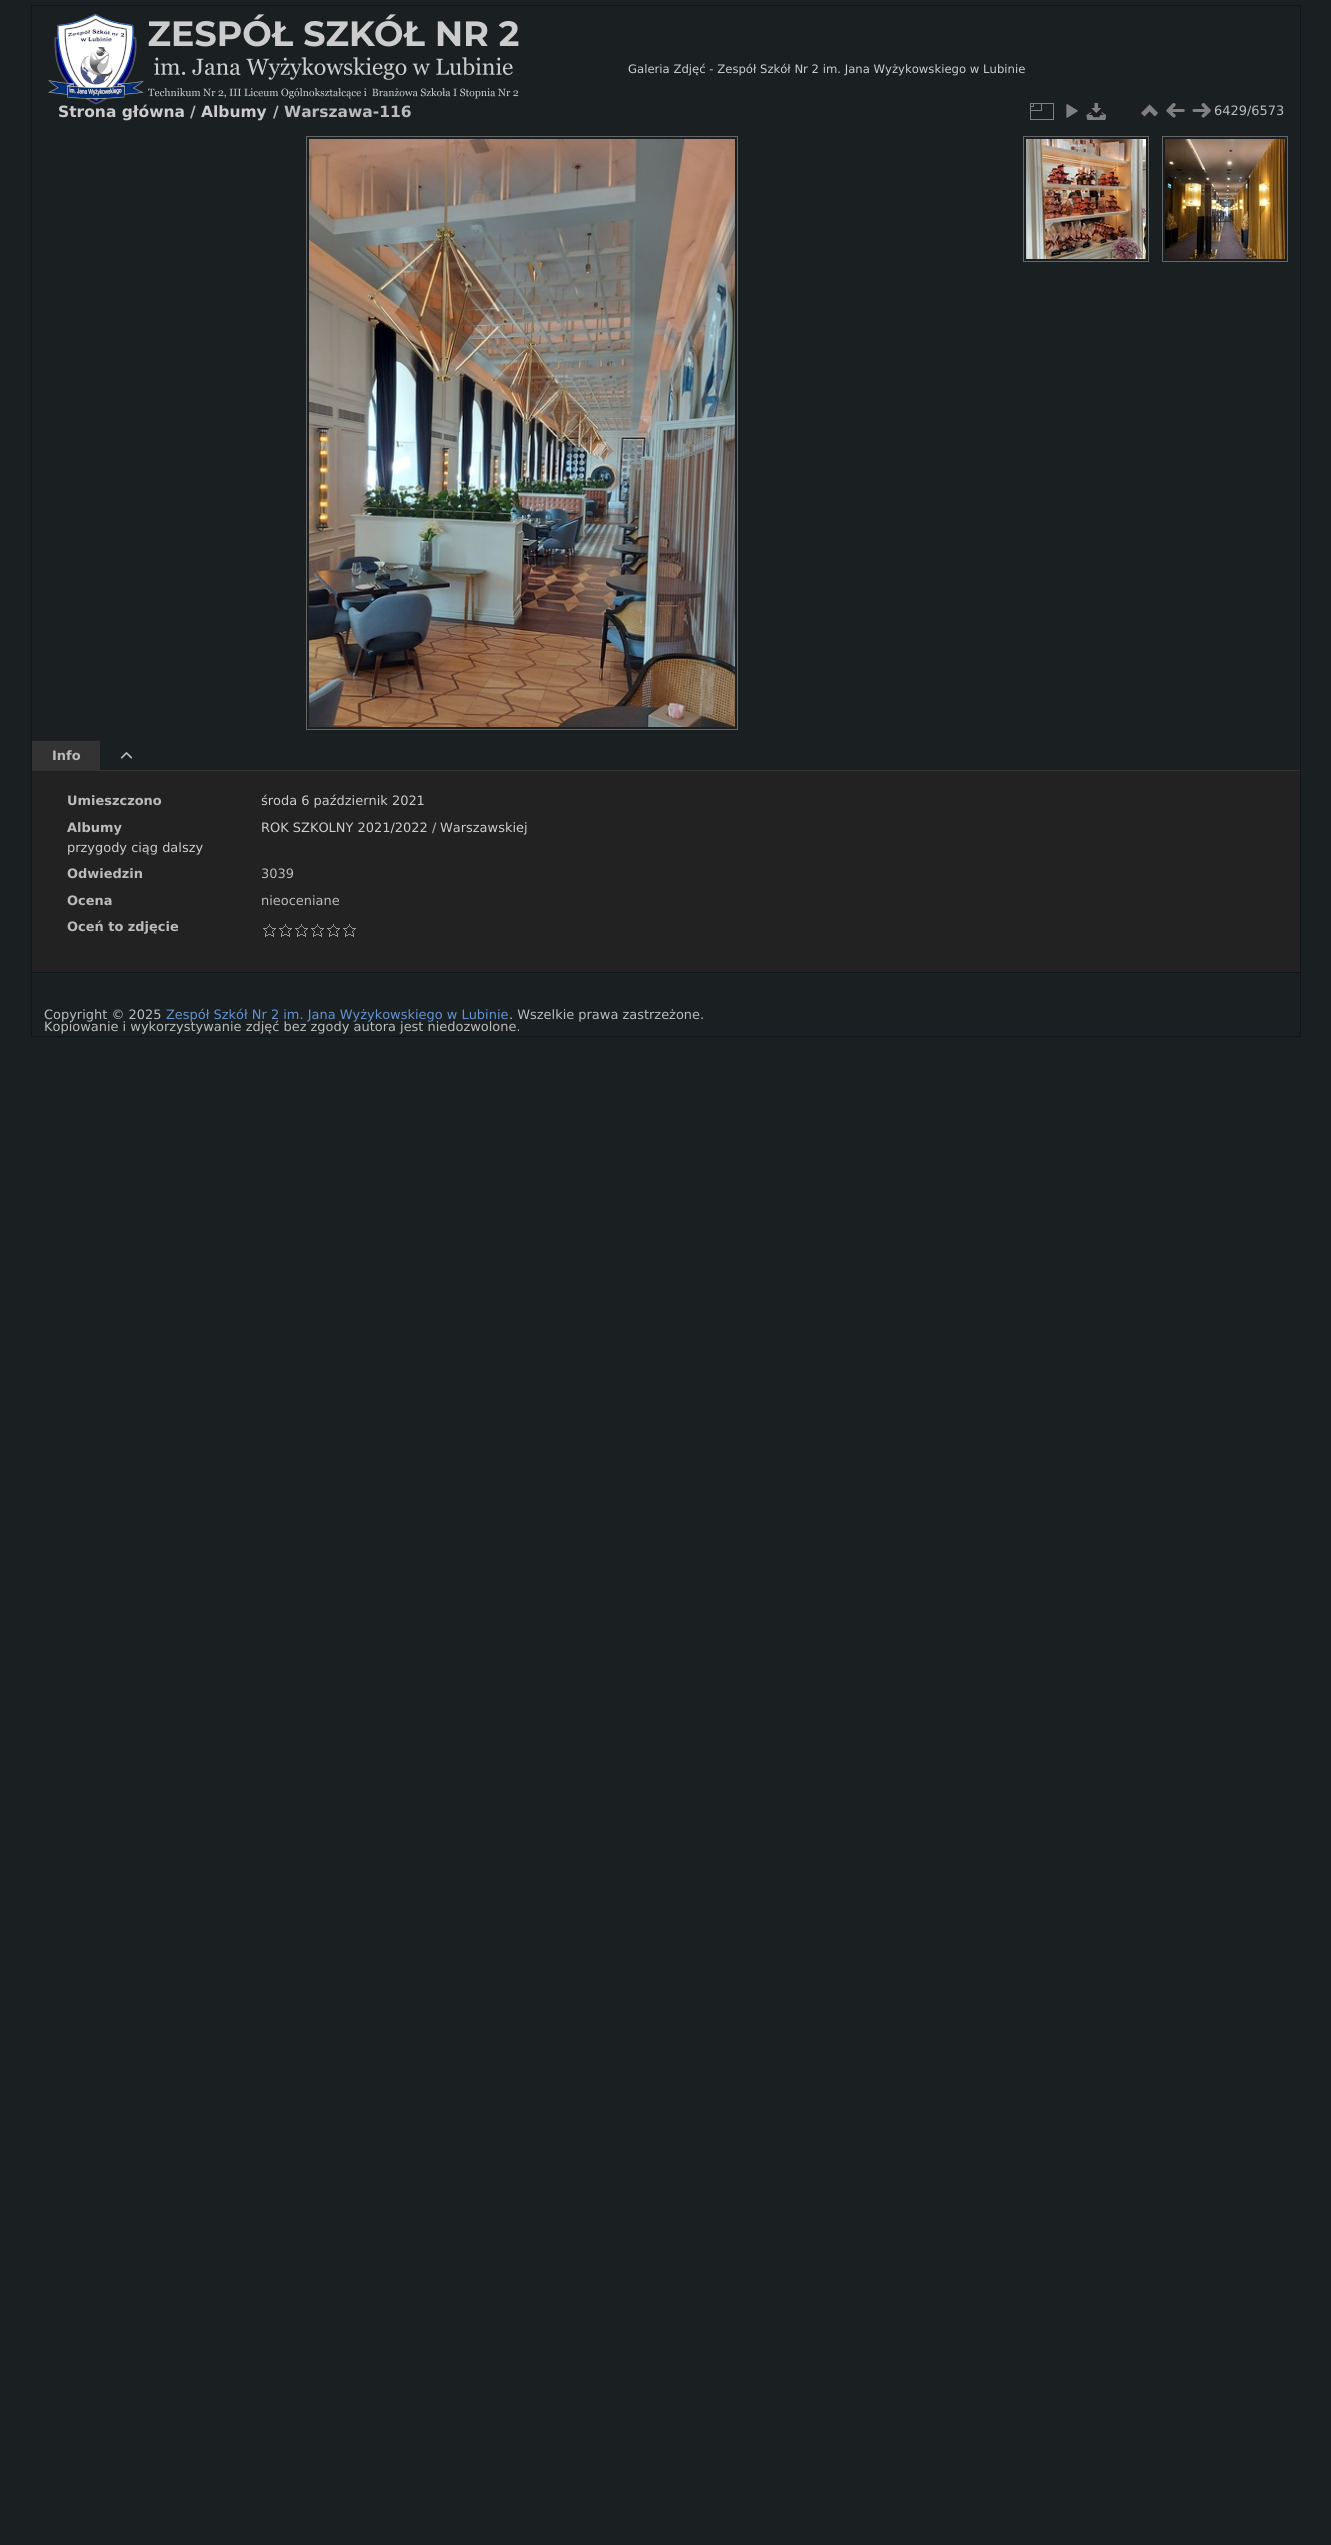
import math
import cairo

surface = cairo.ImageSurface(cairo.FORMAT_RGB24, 1331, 2545)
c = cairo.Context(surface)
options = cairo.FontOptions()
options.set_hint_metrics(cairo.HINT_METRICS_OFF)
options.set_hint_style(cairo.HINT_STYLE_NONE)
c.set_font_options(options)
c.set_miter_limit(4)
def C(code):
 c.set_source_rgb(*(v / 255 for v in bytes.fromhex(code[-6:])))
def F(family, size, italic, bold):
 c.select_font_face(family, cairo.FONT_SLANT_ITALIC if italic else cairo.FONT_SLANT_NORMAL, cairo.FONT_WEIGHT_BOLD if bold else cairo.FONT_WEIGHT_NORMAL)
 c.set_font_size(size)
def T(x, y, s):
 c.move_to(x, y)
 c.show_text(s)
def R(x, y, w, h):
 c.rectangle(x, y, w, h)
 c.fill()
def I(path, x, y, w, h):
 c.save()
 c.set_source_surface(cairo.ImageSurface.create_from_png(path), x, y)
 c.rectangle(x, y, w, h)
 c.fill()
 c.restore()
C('1a2022')
c.paint()
c.rectangle(31.5,5.5,1269,1031)
C('10151c')
c.set_line_width(1)
c.stroke()
I('1.png',48,14,471,91)
F('DejaVu Sans',11.65,0,0)
C('cccccc')
T(628,73,'Galeria Zdjęć - Zespół Szkół Nr 2 im. Jana Wyżykowskiego w Lubinie')
F('DejaVu Sans',15.5,0,1)
T(58,117,'Strona główna')
C('bbbbbb')
T(190,117,'/')
C('cccccc')
T(201,117,'Albumy')
C('bbbbbb')
T(273,117,'/ Warszawa-116')
I('2.png',1030,103,24,17)
I('3.png',1066,104,12,14)
I('4.png',1086,103,21,17)
I('5.png',1141,104,17,13)
I('6.png',1166,103,19,15)
I('7.png',1192,103,19,15)
F('DejaVu Sans',12.95,0,0)
T(1214,115,'6429/6573')
c.rectangle(306.5,136.5,431,593)
C('666666')
c.stroke()
c.rectangle(1023.5,136.5,125,125)
c.stroke()
I('8.png',1026,139,120,120)
c.rectangle(1162.5,136.5,125,125)
c.stroke()
I('9.png',1165,139,120,120)
I('10.png',309,139,426,588)
C('333333')
R(100,770,1200,1)
R(32,741,68,30)
F('DejaVu Sans',12.95,0,1)
C('bbbbbb')
T(52,760,'Info')
I('11.png',120,752,13,7)
C('222222')
R(32,771,1268,201)
C('bbbbbb')
T(67,805,'Umieszczono')
F('DejaVu Sans',12.95,0,0)
C('cccccc')
T(261,805,'środa 6 październik 2021')
F('DejaVu Sans',12.95,0,1)
C('bbbbbb')
T(67,832,'Albumy')
F('DejaVu Sans',12.95,0,0)
C('cccccc')
T(261,832,'ROK SZKOLNY 2021/2022')
C('bbbbbb')
T(432,832,'/')
C('cccccc')
T(440,832,'Warszawskiej')
T(67,852,'przygody ciąg dalszy')
F('DejaVu Sans',12.95,0,1)
C('bbbbbb')
T(67,878,'Odwiedzin')
F('DejaVu Sans',12.95,0,0)
T(261,878,'3039')
F('DejaVu Sans',12.95,0,1)
T(67,905,'Ocena')
F('DejaVu Sans',12.95,0,0)
T(261,905,'nieoceniane')
F('DejaVu Sans',12.95,0,1)
T(67,931,'Oceń to zdjęcie')
I('12.png',263,924,13,13)
I('12.png',279,924,13,13)
I('12.png',295,924,13,13)
I('12.png',311,924,13,13)
I('12.png',327,924,13,13)
I('12.png',343,924,13,13)
C('10151c')
R(32,972,1268,1)
F('DejaVu Sans',12.95,0,0)
C('bbbbbb')
T(44,1019,'Copyright © 2025')
C('6392cf')
T(166,1019,'Zespół Szkół Nr 2 im. Jana Wyżykowskiego w Lubinie')
C('bbbbbb')
T(509,1019,'. Wszelkie prawa zastrzeżone.')
T(44,1031,'Kopiowanie i wykorzystywanie zdjęć bez zgody autora jest niedozwolone.')
surface.write_to_png('o.png')
